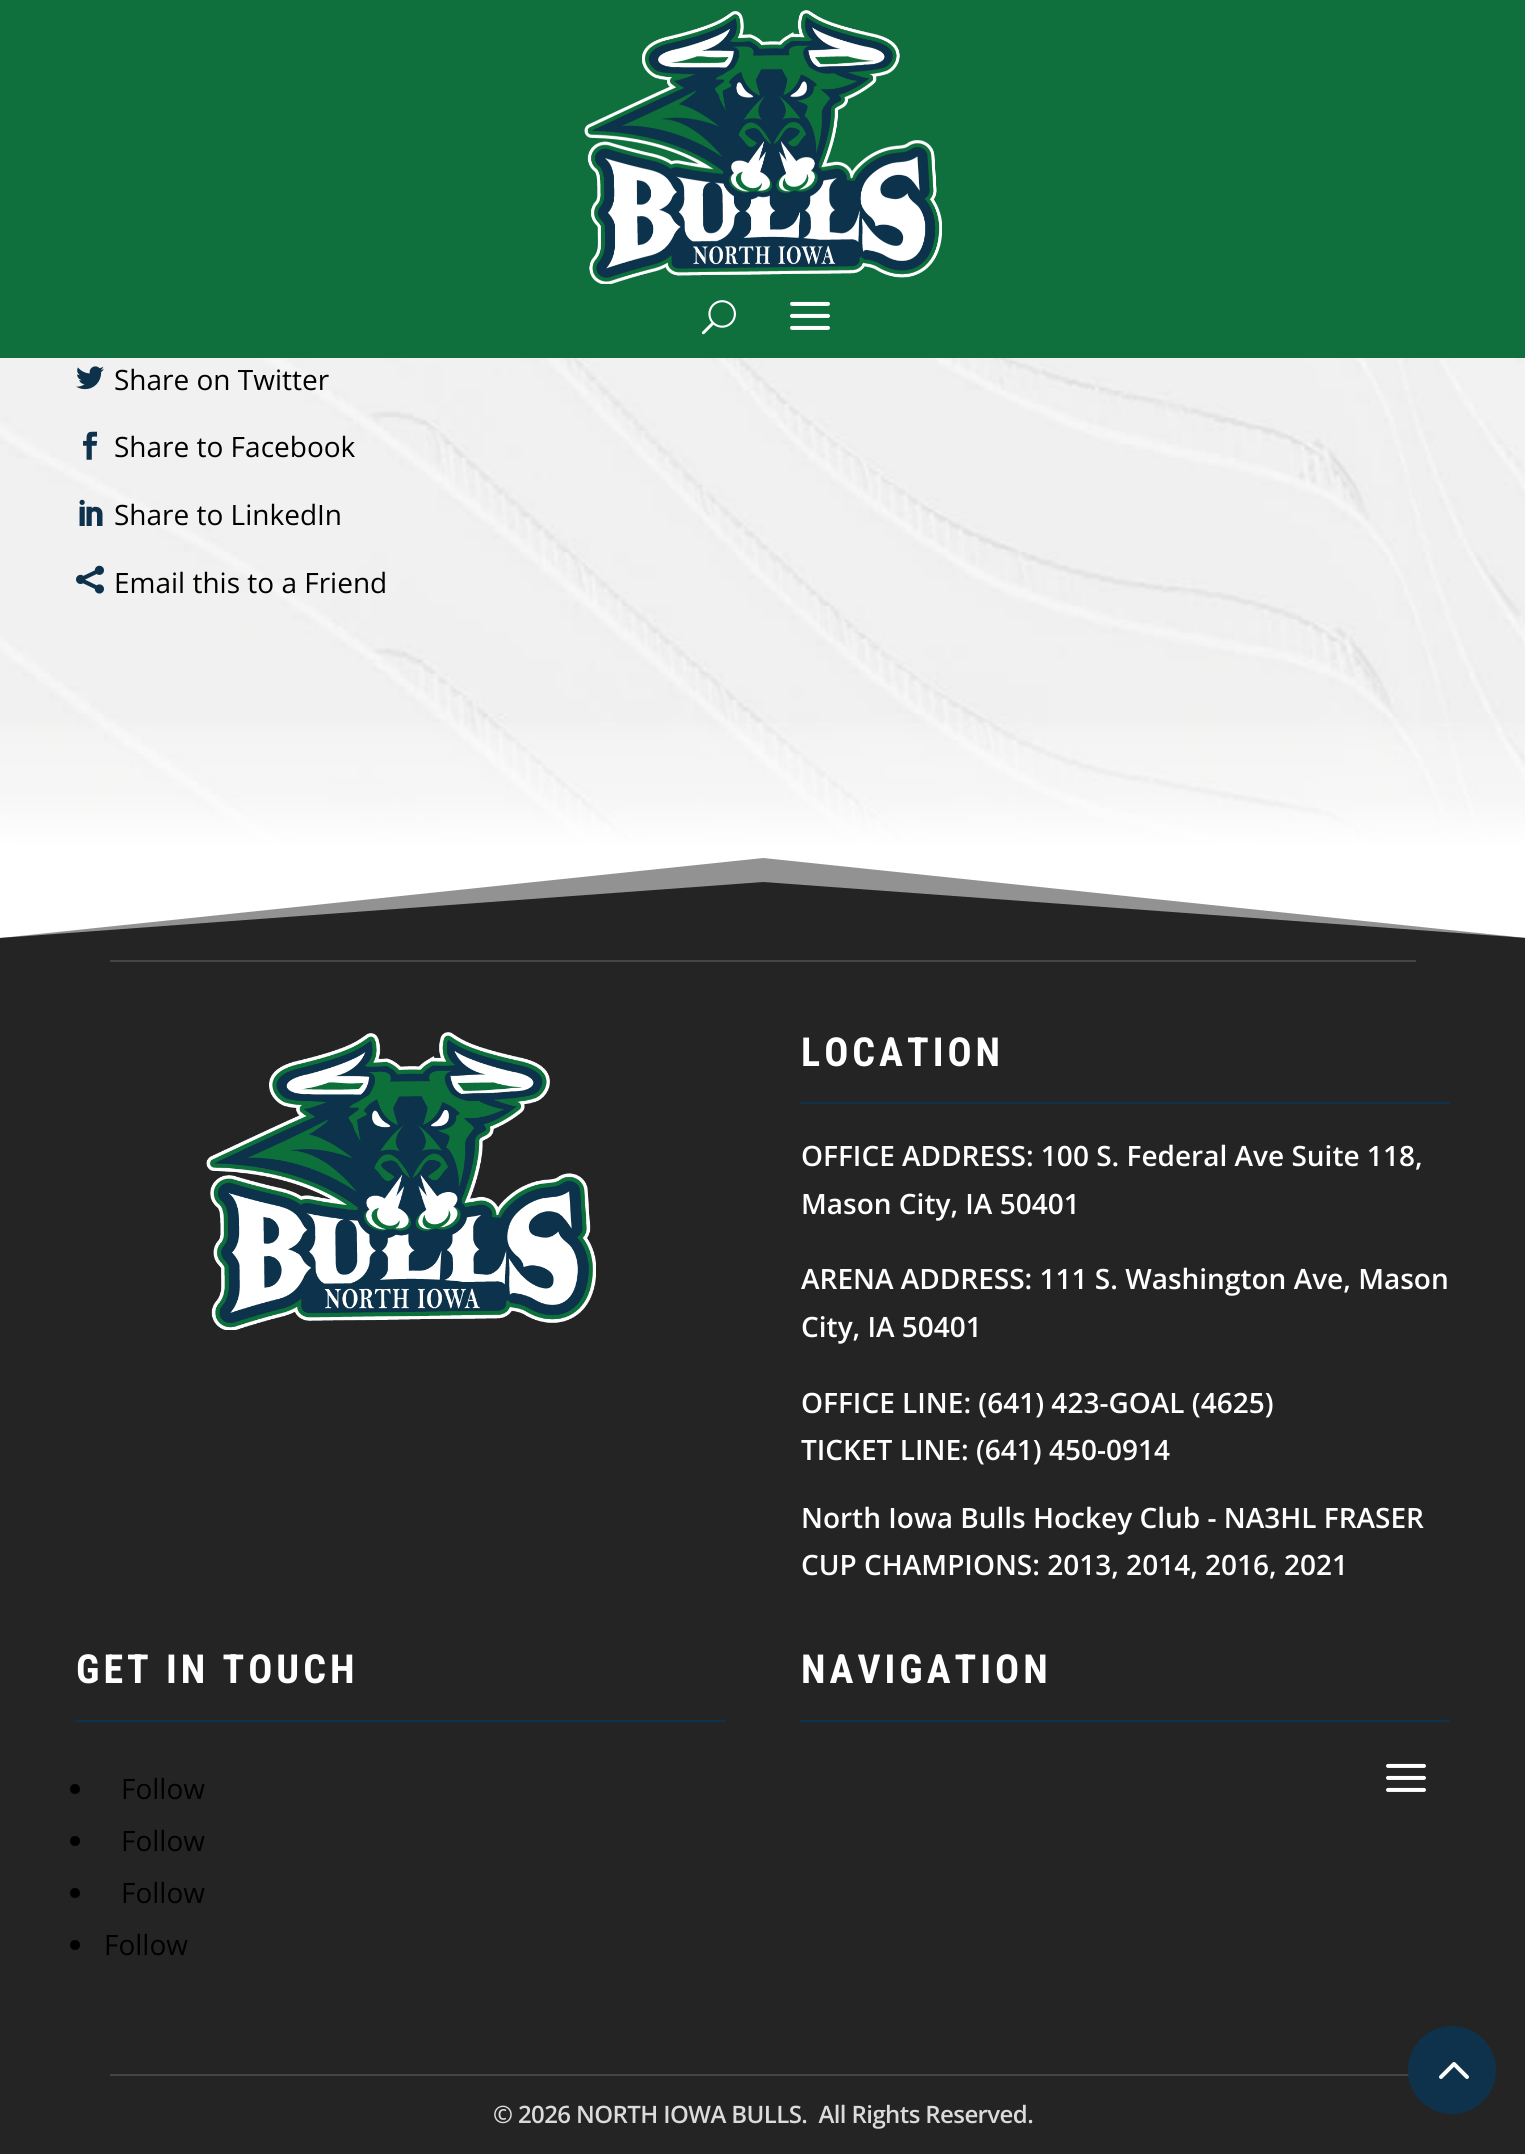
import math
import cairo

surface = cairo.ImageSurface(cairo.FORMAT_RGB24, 1525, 2154)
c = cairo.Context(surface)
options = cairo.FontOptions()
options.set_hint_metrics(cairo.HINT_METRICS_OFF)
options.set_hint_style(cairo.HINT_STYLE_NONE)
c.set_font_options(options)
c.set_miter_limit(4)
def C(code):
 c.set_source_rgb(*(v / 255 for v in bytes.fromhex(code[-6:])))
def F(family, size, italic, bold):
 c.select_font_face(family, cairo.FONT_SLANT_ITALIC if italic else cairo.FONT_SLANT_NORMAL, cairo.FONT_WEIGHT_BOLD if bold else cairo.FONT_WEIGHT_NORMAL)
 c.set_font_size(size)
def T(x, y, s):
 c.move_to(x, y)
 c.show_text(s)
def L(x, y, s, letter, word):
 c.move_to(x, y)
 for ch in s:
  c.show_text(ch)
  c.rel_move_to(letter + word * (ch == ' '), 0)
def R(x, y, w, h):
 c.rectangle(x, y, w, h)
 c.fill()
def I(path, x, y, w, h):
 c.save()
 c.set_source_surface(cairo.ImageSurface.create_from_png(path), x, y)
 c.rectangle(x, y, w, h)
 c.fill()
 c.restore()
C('ffffff')
c.paint()
C('10703d')
R(0,0,1525,358)
I('1.png',584,10,358,274)
I('2.png',701,300,35,35)
I('3.png',790,301,40,29)
I('4.png',0,358,1525,490)
I('5.png',76,366,28,24)
F('Open Sans',28,0,0)
C('000000')
T(114,390,'Share on Twitter')
I('6.png',83,431,15,29)
T(114,457,'Share to Facebook')
I('7.png',79,499,24,27)
T(114,525,'Share to LinkedIn')
I('8.png',76,565,28,29)
T(114,593,'Email this to a Friend')
gradient = cairo.LinearGradient(763,708,763,848)
gradient.add_color_stop_rgba(0,1,1,1,0)
gradient.add_color_stop_rgba(.29,1,1,1,.28)
gradient.add_color_stop_rgba(.64,1,1,1,.4)
gradient.add_color_stop_rgba(1,1,1,1,1)
c.set_source(gradient)
R(0,723,1525,125)
C('929292')
c.new_path()
c.move_to(763,858)
c.line_to(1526,938)
c.line_to(0,938)
c.close_path()
c.fill()
C('242424')
c.new_path()
c.move_to(763,882)
c.line_to(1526,938)
c.line_to(0,938)
c.close_path()
c.fill()
R(0,938,1525,1216)
C('444545')
R(110,960,1306,2)
I('9.png',206,1032,390,298)
F('Roboto Condensed',40,0,1)
C('ffffff')
L(801,1066,'LOCATION',4,0)
C('0e324b')
R(800,1102,650,2)
F('Open Sans SemiBold',28,0,0)
C('ffffff')
T(801,1166,'OFFICE ADDRESS: 100 S. Federal Ave Suite 118,')
T(801,1214,'Mason City, IA 50401')
T(801,1289,'ARENA ADDRESS: 111 S. Washington Ave, Mason')
T(801,1337,'City, IA 50401')
T(801,1413,'OFFICE LINE: (641) 423-GOAL (4625)')
T(801,1460,'TICKET LINE: (641) 450-0914')
T(801,1528,'North Iowa Bulls Hockey Club - NA3HL FRASER')
T(801,1575,'CUP CHAMPIONS: 2013, 2014, 2016, 2021')
F('Roboto Condensed',40,0,1)
L(76,1683,'GET IN TOUCH',4,0)
C('0e324b')
R(76,1720,650,2)
C('000000')
c.new_path()
c.arc(75,1789,5,0,2 * math.pi)
c.fill()
F('Open Sans',28,0,0)
T(121,1799,'Follow')
c.new_path()
c.arc(75,1841,5,0,2 * math.pi)
c.fill()
T(121,1851,'Follow')
c.new_path()
c.arc(75,1893,5,0,2 * math.pi)
c.fill()
T(121,1903,'Follow')
c.new_path()
c.arc(75,1945,5,0,2 * math.pi)
c.fill()
T(104,1955,'Follow')
F('Roboto Condensed',40,0,1)
C('ffffff')
L(801,1683,'NAVIGATION',4,0)
C('0e324b')
R(800,1720,650,2)
I('10.png',1386,1763,40,29)
C('444545')
R(110,2074,1306,2)
F('Open Sans SemiBold',24,0,0)
C('dbdbdb')
L(493,2123,'© 2026 NORTH IOWA BULLS.  All Rights Reserved.',-.6,0)
C('0e324b')
c.new_path()
c.arc(1452,2070,44,0,2 * math.pi)
c.fill()
I('11.png',1439,2062,30,17)
surface.write_to_png('o.png')
